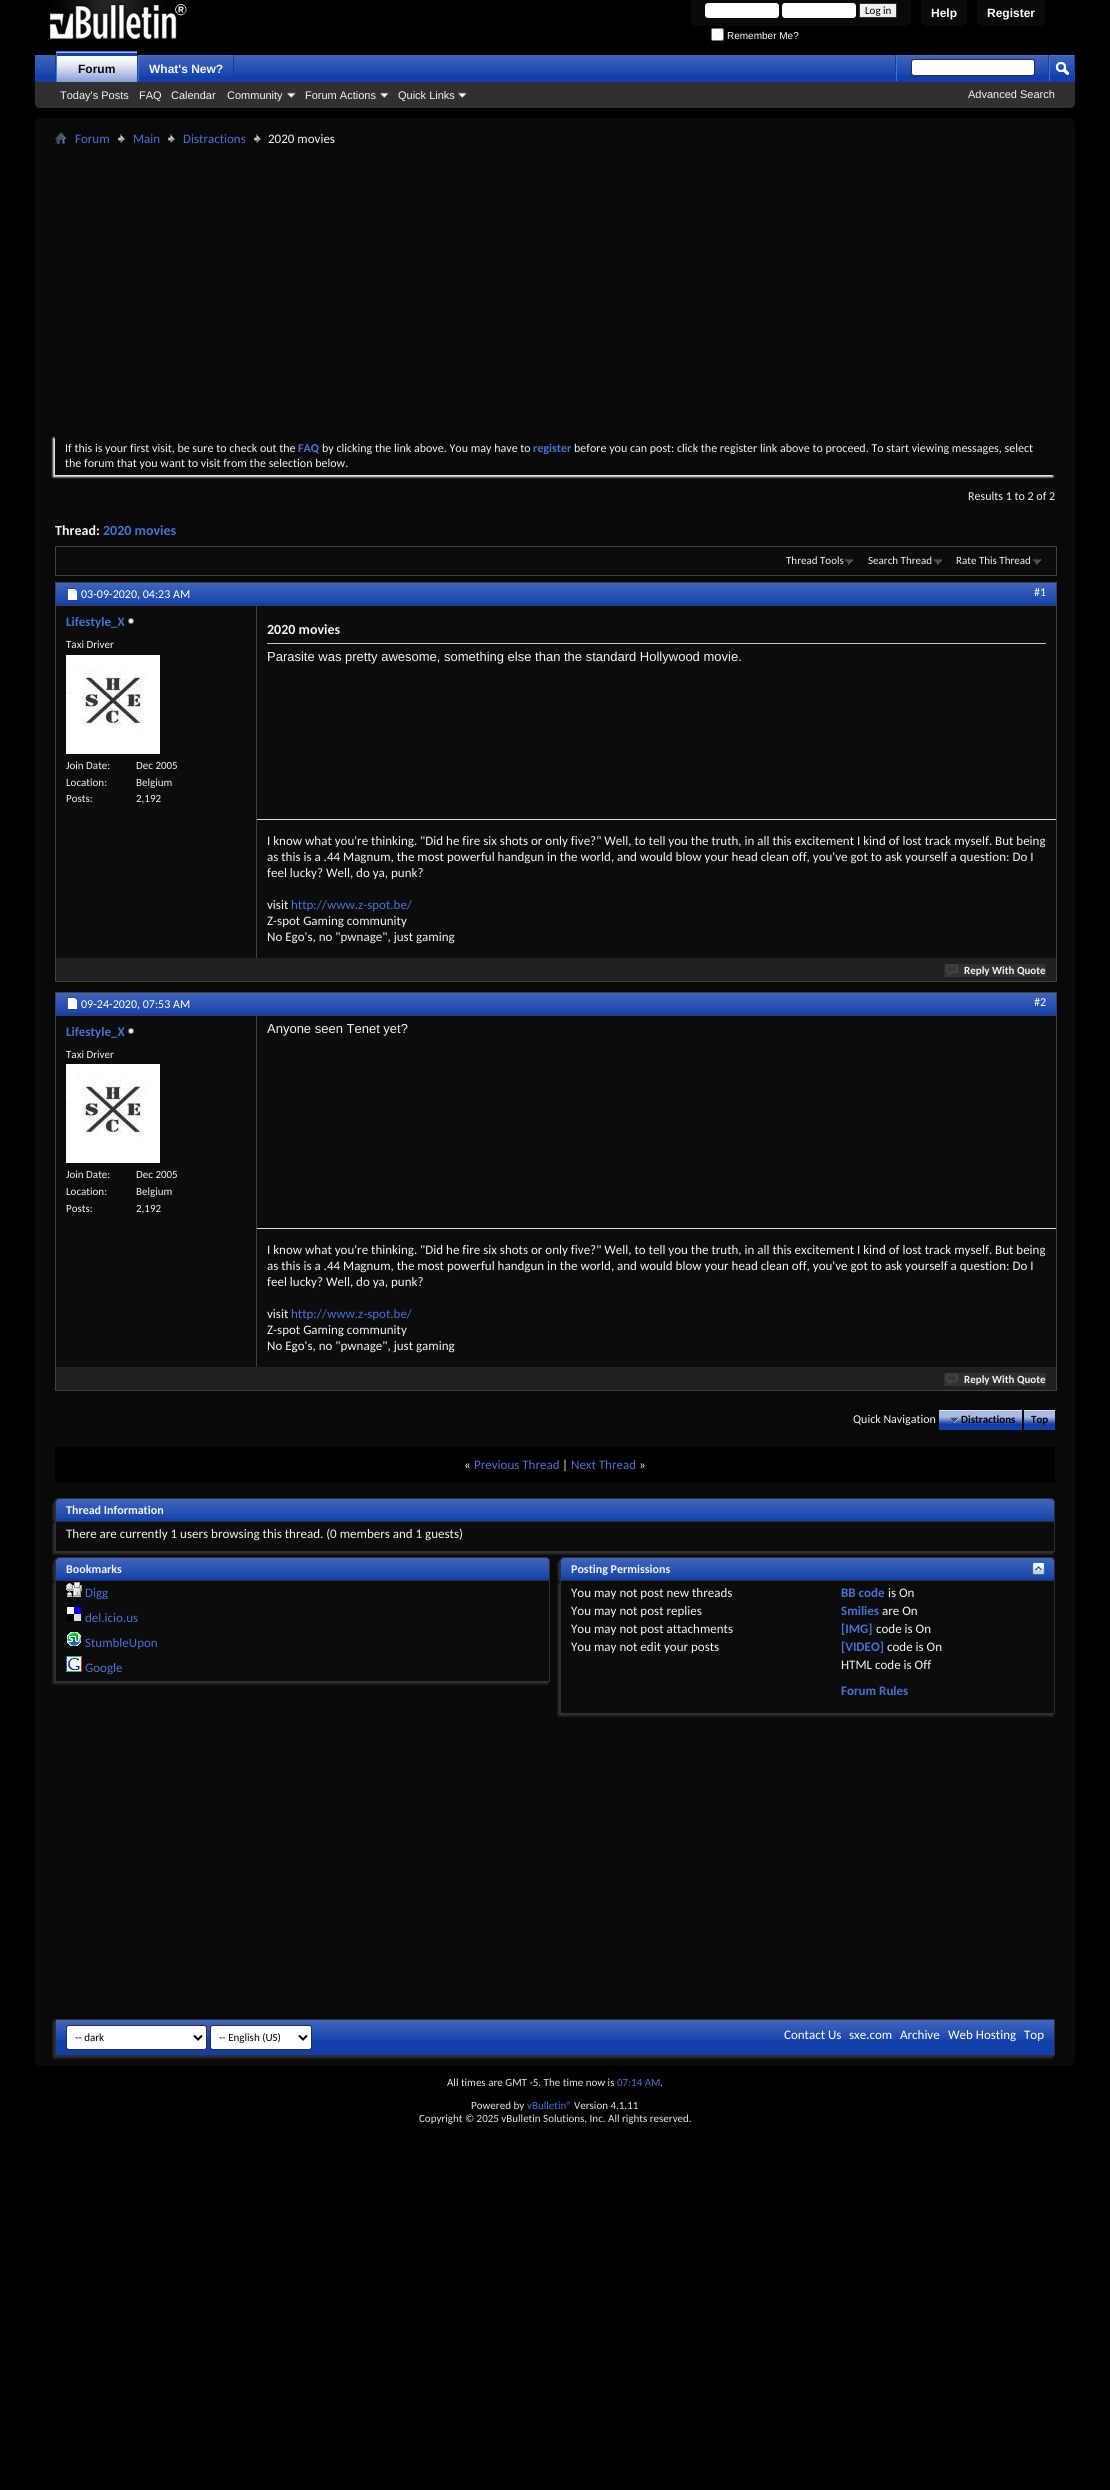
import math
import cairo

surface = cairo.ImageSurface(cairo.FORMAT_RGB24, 1110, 2490)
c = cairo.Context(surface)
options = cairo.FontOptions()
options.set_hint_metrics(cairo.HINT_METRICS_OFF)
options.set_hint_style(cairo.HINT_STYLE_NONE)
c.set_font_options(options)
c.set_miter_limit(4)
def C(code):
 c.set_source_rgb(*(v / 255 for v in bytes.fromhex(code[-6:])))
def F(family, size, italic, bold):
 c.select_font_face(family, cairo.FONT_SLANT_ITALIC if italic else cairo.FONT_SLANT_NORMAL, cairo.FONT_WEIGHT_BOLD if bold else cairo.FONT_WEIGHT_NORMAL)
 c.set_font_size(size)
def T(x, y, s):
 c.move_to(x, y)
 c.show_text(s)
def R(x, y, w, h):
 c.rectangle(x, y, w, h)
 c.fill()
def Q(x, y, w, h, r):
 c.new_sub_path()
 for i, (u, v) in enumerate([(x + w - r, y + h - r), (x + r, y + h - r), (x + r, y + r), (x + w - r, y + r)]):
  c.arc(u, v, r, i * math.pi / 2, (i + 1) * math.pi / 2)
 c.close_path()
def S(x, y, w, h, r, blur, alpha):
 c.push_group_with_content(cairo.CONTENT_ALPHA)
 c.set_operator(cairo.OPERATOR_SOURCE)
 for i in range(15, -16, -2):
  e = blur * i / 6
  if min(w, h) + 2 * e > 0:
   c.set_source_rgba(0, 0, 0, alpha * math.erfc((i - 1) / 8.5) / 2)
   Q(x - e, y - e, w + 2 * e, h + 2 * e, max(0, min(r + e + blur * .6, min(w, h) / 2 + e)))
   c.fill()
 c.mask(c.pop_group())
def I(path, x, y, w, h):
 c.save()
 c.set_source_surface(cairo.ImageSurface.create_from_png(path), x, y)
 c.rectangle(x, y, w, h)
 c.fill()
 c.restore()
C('000000')
c.paint()
I('1.png',50,0,137,39)
C('090909')
c.new_path()
c.move_to(691,0)
c.line_to(911,0)
c.line_to(911,21)
c.curve_to(911,24,909,26,906,26)
c.line_to(696,26)
c.curve_to(693,26,691,24,691,21)
c.close_path()
c.fill()
C('ffffff')
Q(705,3,74,15,3)
c.fill()
Q(782,3,74,15,3)
c.fill()
C('efefef')
c.rectangle(859.5,3.5,37,14)
c.fill_preserve()
C('303030')
c.set_line_width(1)
c.stroke()
F('Carlito',11,0,0)
C('000000')
T(865,14,'Log in')
C('ffffff')
Q(711.5,28.5,12,12,1.5)
c.fill_preserve()
C('767676')
c.stroke()
F('Liberation Sans',10,0,0)
C('ffffff')
T(727,39,'Remember Me?')
C('090909')
c.new_path()
c.move_to(921,0)
c.line_to(967,0)
c.line_to(967,21)
c.curve_to(967,24,965,26,962,26)
c.line_to(926,26)
c.curve_to(923,26,921,24,921,21)
c.close_path()
c.fill()
F('Liberation Sans',12,0,1)
C('ffffff')
T(931,17,'Help')
C('090909')
c.new_path()
c.move_to(977,0)
c.line_to(1045,0)
c.line_to(1045,21)
c.curve_to(1045,24,1043,26,1040,26)
c.line_to(982,26)
c.curve_to(979,26,977,24,977,21)
c.close_path()
c.fill()
C('ffffff')
T(987,17,'Register')
C('303030')
c.new_path()
c.move_to(35,55)
c.line_to(1075,55)
c.line_to(1075,103)
c.curve_to(1075,106,1073,108,1070,108)
c.line_to(40,108)
c.curve_to(37,108,35,106,35,103)
c.close_path()
c.fill()
C('1240ab')
R(35,55,1040,26)
I('2.png',35,55,1039,20)
R(137,55,1,26)
R(55,55,1,26)
R(57,52,80,23)
R(233,55,1,27)
C('4671d5')
R(138,55,95,1)
R(138,55,1,27)
C('1240ab')
R(35,81,1040,1)
I('3.png',57,52,80,30)
C('4671d5')
R(56,51,81,1)
R(56,51,1,31)
C('090909')
T(78,73,'Forum')
F('Liberation Sans',11,0,0)
C('f3f3f3')
T(60,99,'Today\'s Posts')
T(139,99,'FAQ')
T(171,99,'Calendar')
T(227,99,'Community')
I('4.png',287,92,9,6)
T(305,99,'Forum Actions')
I('4.png',380,92,9,6)
T(398,99,'Quick Links')
I('4.png',458,92,9,6)
C('1240ab')
R(139,56,94,19)
I('5.png',139,56,94,20)
F('Liberation Sans',12,0,1)
C('f3f3f3')
T(149,73,'What\'s New?')
C('1240ab')
R(895,55,1,26)
C('4671d5')
R(896,55,152,1)
R(896,55,1,26)
C('ffffff')
Q(911.5,59.5,123,16,2.5)
c.fill_preserve()
C('303030')
c.stroke()
C('1240ab')
R(1048,55,1,26)
C('4671d5')
R(1049,55,25,1)
R(1049,55,1,26)
I('6.png',1056,62,13,14)
F('Liberation Sans',11,0,0)
C('f3f3f3')
T(968,98,'Advanced Search')
C('090909')
Q(35,118,1040,1948,5)
c.fill()
I('7.png',55,132,12,12)
I('8.png',118,134,7,9)
F('Carlito',13,0,0)
C('4671d5')
T(75,143,'Forum')
I('8.png',168,134,7,9)
T(133,143,'Main')
I('8.png',254,134,7,9)
T(183,143,'Distractions')
C('f3f3f3')
T(268,143,'2020 movies')
c.save()
c.set_fill_rule(cairo.FILL_RULE_EVEN_ODD)
c.new_path()
c.move_to(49,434)
c.line_to(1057,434)
c.line_to(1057,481)
c.line_to(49,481)
c.close_path()
c.move_to(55,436)
c.line_to(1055,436)
c.line_to(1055,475)
c.line_to(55,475)
c.close_path()
c.clip()
C('f3f3f3')
S(53,438,1000,39,0,1,1)
c.restore()
F('Carlito',12,0,0)
T(65,452,'If this is your first visit, be sure to check out the')
F('Carlito',12,0,1)
C('4671d5')
T(298,452,'FAQ')
F('Carlito',12,0,0)
C('f3f3f3')
T(322,452,'by clicking the link above. You may have to')
F('Carlito',12,0,1)
C('4671d5')
T(533,452,'register')
F('Carlito',12,0,0)
C('f3f3f3')
T(574,452,'before you can post: click the register link above to proceed. To start viewing messages, select')
T(65,467,'the forum that you want to visit from the selection below.')
T(968,500,'Results 1 to 2 of 2')
F('Carlito',14,0,1)
T(55,535,'Thread:')
C('4671d5')
T(103,535,'2020 movies')
C('0c0c0c')
c.rectangle(55.5,546.5,1001,29)
c.fill_preserve()
C('404040')
c.stroke()
I('9.png',844,558,9,7)
F('Carlito',11,0,0)
C('f3f3f3')
T(786,564,'Thread Tools')
I('9.png',933,558,9,7)
T(868,564,'Search Thread')
I('9.png',1032,558,9,7)
T(956,564,'Rate This Thread')
c.rectangle(55.5,582.5,1001,399)
C('404040')
c.stroke()
C('1240ab')
R(56,583,1000,22)
I('10.png',56,583,1000,20)
c.rectangle(55.5,582.5,1001,23)
C('404040')
c.stroke()
I('11.png',67,588,11,13)
F('Carlito',12,0,0)
C('ffffff')
T(81,598,'03-09-2020, 04:23 AM')
T(1034,596,'#1')
C('0c0c0c')
R(56,606,1000,352)
F('Carlito',13,0,1)
C('4671d5')
T(66,626,'Lifestyle_X')
I('12.png',128,618,6,6)
F('Carlito',11,0,0)
C('f3f3f3')
T(66,648,'Taxi Driver')
I('13.png',66,655,94,99)
T(66,769,'Join Date:')
T(136,769,'Dec 2005')
T(66,786,'Location:')
T(136,786,'Belgium')
T(66,802,'Posts:')
T(136,802,'2,192')
C('404040')
R(256,606,1,352)
C('c8c8c8')
R(267,643,779,1)
F('Carlito',14,0,1)
C('f3f3f3')
T(267,634,'2020 movies')
F('Liberation Sans',13,0,0)
T(267,661,'Parasite was pretty awesome, something else than the standard Hollywood movie.')
C('dddddd')
R(257,819,799,1)
F('Carlito',13,0,0)
C('f3f3f3')
T(267,845,'I know what you\'re thinking. "Did he fire six shots or only five?" Well, to tell you the truth, in all this excitement I kind of lost track myself. But being')
T(267,861,'as this is a .44 Magnum, the most powerful handgun in the world, and would blow your head clean off, you\'ve got to ask yourself a question: Do I')
T(267,877,'feel lucky? Well, do ya, punk?')
T(267,909,'visit')
C('4671d5')
T(291,909,'http://www.z-spot.be/')
C('f3f3f3')
T(267,925,'Z-spot Gaming community')
T(267,941,'No Ego\'s, no "pwnage", just gaming')
C('202020')
R(56,958,1000,23)
C('303030')
R(944,964,102,13)
I('14.png',945,964,14,13)
F('Carlito',11,0,1)
C('f3f3f3')
T(964,974,'Reply With Quote')
c.rectangle(55.5,992.5,1001,398)
C('404040')
c.stroke()
C('1240ab')
R(56,993,1000,22)
I('10.png',56,993,1000,20)
c.rectangle(55.5,992.5,1001,23)
C('404040')
c.stroke()
I('15.png',67,997,11,13)
F('Carlito',12,0,0)
C('ffffff')
T(81,1008,'09-24-2020, 07:53 AM')
T(1034,1006,'#2')
C('0c0c0c')
R(56,1016,1000,351)
F('Carlito',13,0,1)
C('4671d5')
T(66,1036,'Lifestyle_X')
I('12.png',128,1028,6,6)
F('Carlito',11,0,0)
C('f3f3f3')
T(66,1058,'Taxi Driver')
I('13.png',66,1064,94,99)
T(66,1178,'Join Date:')
T(136,1178,'Dec 2005')
T(66,1195,'Location:')
T(136,1195,'Belgium')
T(66,1212,'Posts:')
T(136,1212,'2,192')
C('404040')
R(256,1016,1,351)
F('Liberation Sans',13,0,0)
C('f3f3f3')
T(267,1033,'Anyone seen Tenet yet?')
C('dddddd')
R(257,1228,799,1)
F('Carlito',13,0,0)
C('f3f3f3')
T(267,1254,'I know what you\'re thinking. "Did he fire six shots or only five?" Well, to tell you the truth, in all this excitement I kind of lost track myself. But being')
T(267,1270,'as this is a .44 Magnum, the most powerful handgun in the world, and would blow your head clean off, you\'ve got to ask yourself a question: Do I')
T(267,1286,'feel lucky? Well, do ya, punk?')
T(267,1318,'visit')
C('4671d5')
T(291,1318,'http://www.z-spot.be/')
C('f3f3f3')
T(267,1334,'Z-spot Gaming community')
T(267,1350,'No Ego\'s, no "pwnage", just gaming')
C('202020')
R(56,1367,1000,23)
C('303030')
R(944,1373,102,13)
I('14.png',945,1373,14,13)
F('Carlito',11,0,1)
C('f3f3f3')
T(964,1383,'Reply With Quote')
F('Carlito',12,0,0)
T(853,1423,'Quick Navigation')
C('1240ab')
R(939,1410,83,20)
I('16.png',939,1410,83,14)
R(1024,1410,31,20)
I('17.png',1024,1410,31,14)
I('18.png',950,1417,9,6)
F('Carlito',11,0,1)
C('000000')
T(961,1423,'Distractions')
T(1031,1423,'Top')
R(55,1447,1000,36)
F('Carlito',13,0,0)
C('f3f3f3')
T(464,1469,'«')
C('4671d5')
T(474,1469,'Previous Thread')
C('f3f3f3')
T(562,1469,'|')
C('4671d5')
T(571,1469,'Next Thread')
C('f3f3f3')
T(639,1469,'»')
C('303030')
S(53,1500,1000,24,5,1,1)
C('1240ab')
c.new_path()
c.move_to(60,1498)
c.line_to(1050,1498)
c.curve_to(1053,1498,1055,1500,1055,1503)
c.line_to(1055,1522)
c.line_to(55,1522)
c.line_to(55,1503)
c.curve_to(55,1500,57,1498,60,1498)
c.close_path()
c.fill()
I('19.png',55,1499,1000,20)
c.new_path()
c.move_to(60,1498.5)
c.line_to(1050,1498.5)
c.curve_to(1052.5,1498.5,1054.5,1500.5,1054.5,1503)
c.line_to(1054.5,1521.5)
c.line_to(55.5,1521.5)
c.line_to(55.5,1503)
c.curve_to(55.5,1500.5,57.5,1498.5,60,1498.5)
c.close_path()
C('303030')
c.stroke()
F('Carlito',12,0,1)
C('f3f3f3')
T(66,1514,'Thread Information')
C('303030')
S(53,1524,1000,30,0,1,1)
C('0c0c0c')
R(56,1522,998,29)
C('303030')
R(1054,1522,1,30)
R(1052,1551,3,1)
R(55,1522,1,3)
F('Carlito',13,0,0)
C('f3f3f3')
T(66,1538,'There are currently 1 users browsing this thread. (0 members and 1 guests)')
C('303030')
S(53,1559,495,24,5,1,1)
C('1240ab')
c.new_path()
c.move_to(60,1557)
c.line_to(545,1557)
c.curve_to(548,1557,550,1559,550,1562)
c.line_to(550,1581)
c.line_to(55,1581)
c.line_to(55,1562)
c.curve_to(55,1559,57,1557,60,1557)
c.close_path()
c.fill()
I('20.png',55,1558,495,20)
c.new_path()
c.move_to(60,1557.5)
c.line_to(545,1557.5)
c.curve_to(547.5,1557.5,549.5,1559.5,549.5,1562)
c.line_to(549.5,1580.5)
c.line_to(55.5,1580.5)
c.line_to(55.5,1562)
c.curve_to(55.5,1559.5,57.5,1557.5,60,1557.5)
c.close_path()
C('303030')
c.stroke()
F('Carlito',12,0,1)
C('f3f3f3')
T(66,1573,'Bookmarks')
C('303030')
S(53,1583,495,101,0,1,1)
C('0c0c0c')
R(56,1581,493,100)
C('303030')
R(549,1581,1,101)
R(547,1681,3,1)
R(55,1581,1,3)
I('21.png',66,1582,16,15)
F('Carlito',13,0,0)
C('4671d5')
T(85,1597,'Digg')
I('22.png',67,1607,14,14)
T(85,1622,'del.icio.us')
I('23.png',67,1632,14,14)
T(85,1647,'StumbleUpon')
I('24.png',66,1656,16,16)
T(85,1672,'Google')
C('303030')
S(558,1559,495,24,5,1,1)
C('1240ab')
c.new_path()
c.move_to(565,1557)
c.line_to(1050,1557)
c.curve_to(1053,1557,1055,1559,1055,1562)
c.line_to(1055,1581)
c.line_to(560,1581)
c.line_to(560,1562)
c.curve_to(560,1559,562,1557,565,1557)
c.close_path()
c.fill()
I('20.png',560,1558,495,20)
c.new_path()
c.move_to(565,1557.5)
c.line_to(1050,1557.5)
c.curve_to(1052.5,1557.5,1054.5,1559.5,1054.5,1562)
c.line_to(1054.5,1580.5)
c.line_to(560.5,1580.5)
c.line_to(560.5,1562)
c.curve_to(560.5,1559.5,562.5,1557.5,565,1557.5)
c.close_path()
C('303030')
c.stroke()
F('Carlito',12,0,1)
C('f3f3f3')
T(571,1573,'Posting Permissions')
I('25.png',1032,1562,13,13)
C('303030')
S(558,1583,495,133,0,1,1)
C('0c0c0c')
R(561,1581,493,132)
C('303030')
R(1054,1581,1,133)
R(1052,1713,3,1)
R(560,1581,1,3)
F('Carlito',13,0,0)
C('f3f3f3')
T(571,1597,'You may not post new threads')
T(571,1615,'You may not post replies')
T(571,1633,'You may not post attachments')
T(571,1651,'You may not edit your posts')
F('Carlito',13,0,1)
C('4671d5')
T(841,1597,'BB code')
F('Carlito',13,0,0)
C('f3f3f3')
T(888,1597,'is On')
F('Carlito',13,0,1)
C('4671d5')
T(841,1615,'Smilies')
F('Carlito',13,0,0)
C('f3f3f3')
T(882,1615,'are On')
F('Carlito',13,0,1)
C('4671d5')
T(841,1633,'[IMG]')
F('Carlito',13,0,0)
C('f3f3f3')
T(876,1633,'code is On')
F('Carlito',13,0,1)
C('4671d5')
T(841,1651,'[VIDEO]')
F('Carlito',13,0,0)
C('f3f3f3')
T(887,1651,'code is On')
T(841,1669,'HTML code is Off')
F('Carlito',13,0,1)
C('4671d5')
T(841,1695,'Forum Rules')
C('303030')
S(53,2021,1000,37,0,1,1)
C('1240ab')
R(56,2020,998,35)
I('26.png',56,2020,998,20)
c.rectangle(55.5,2019.5,999,36)
C('303030')
c.stroke()
C('ffffff')
Q(66.5,2025.5,140,24,2.5)
c.fill_preserve()
C('303030')
c.stroke()
c.new_path()
c.move_to(194,2035.5)
c.line_to(198,2039.5)
c.line_to(202,2035.5)
C('000000')
c.set_line_width(2)
c.stroke()
F('Carlito',11,0,0)
T(75,2041,'-- dark')
C('ffffff')
Q(210.5,2025.5,101,24,2.5)
c.fill_preserve()
C('303030')
c.set_line_width(1)
c.stroke()
c.new_path()
c.move_to(299,2035.5)
c.line_to(303,2039.5)
c.line_to(307,2035.5)
C('000000')
c.set_line_width(2)
c.stroke()
T(219,2041,'-- English (US)')
F('Carlito',13,0,0)
C('ffffff')
T(784,2039,'Contact Us')
T(849,2039,'sxe.com')
T(900,2039,'Archive')
T(948,2039,'Web Hosting')
T(1024,2039,'Top')
F('Carlito',11,0,0)
C('e6e6e6')
T(447,2086,'All times are GMT -5. The time now is')
C('4671d5')
T(617,2086,'07:14 AM')
C('e6e6e6')
T(660,2086,'.')
T(471,2109,'Powered by')
C('4671d5')
T(527,2109,'vBulletin®')
C('e6e6e6')
T(574,2109,'Version 4.1.11')
T(419,2122,'Copyright © 2025 vBulletin Solutions, Inc. All rights reserved.')
surface.write_to_png('o.png')
